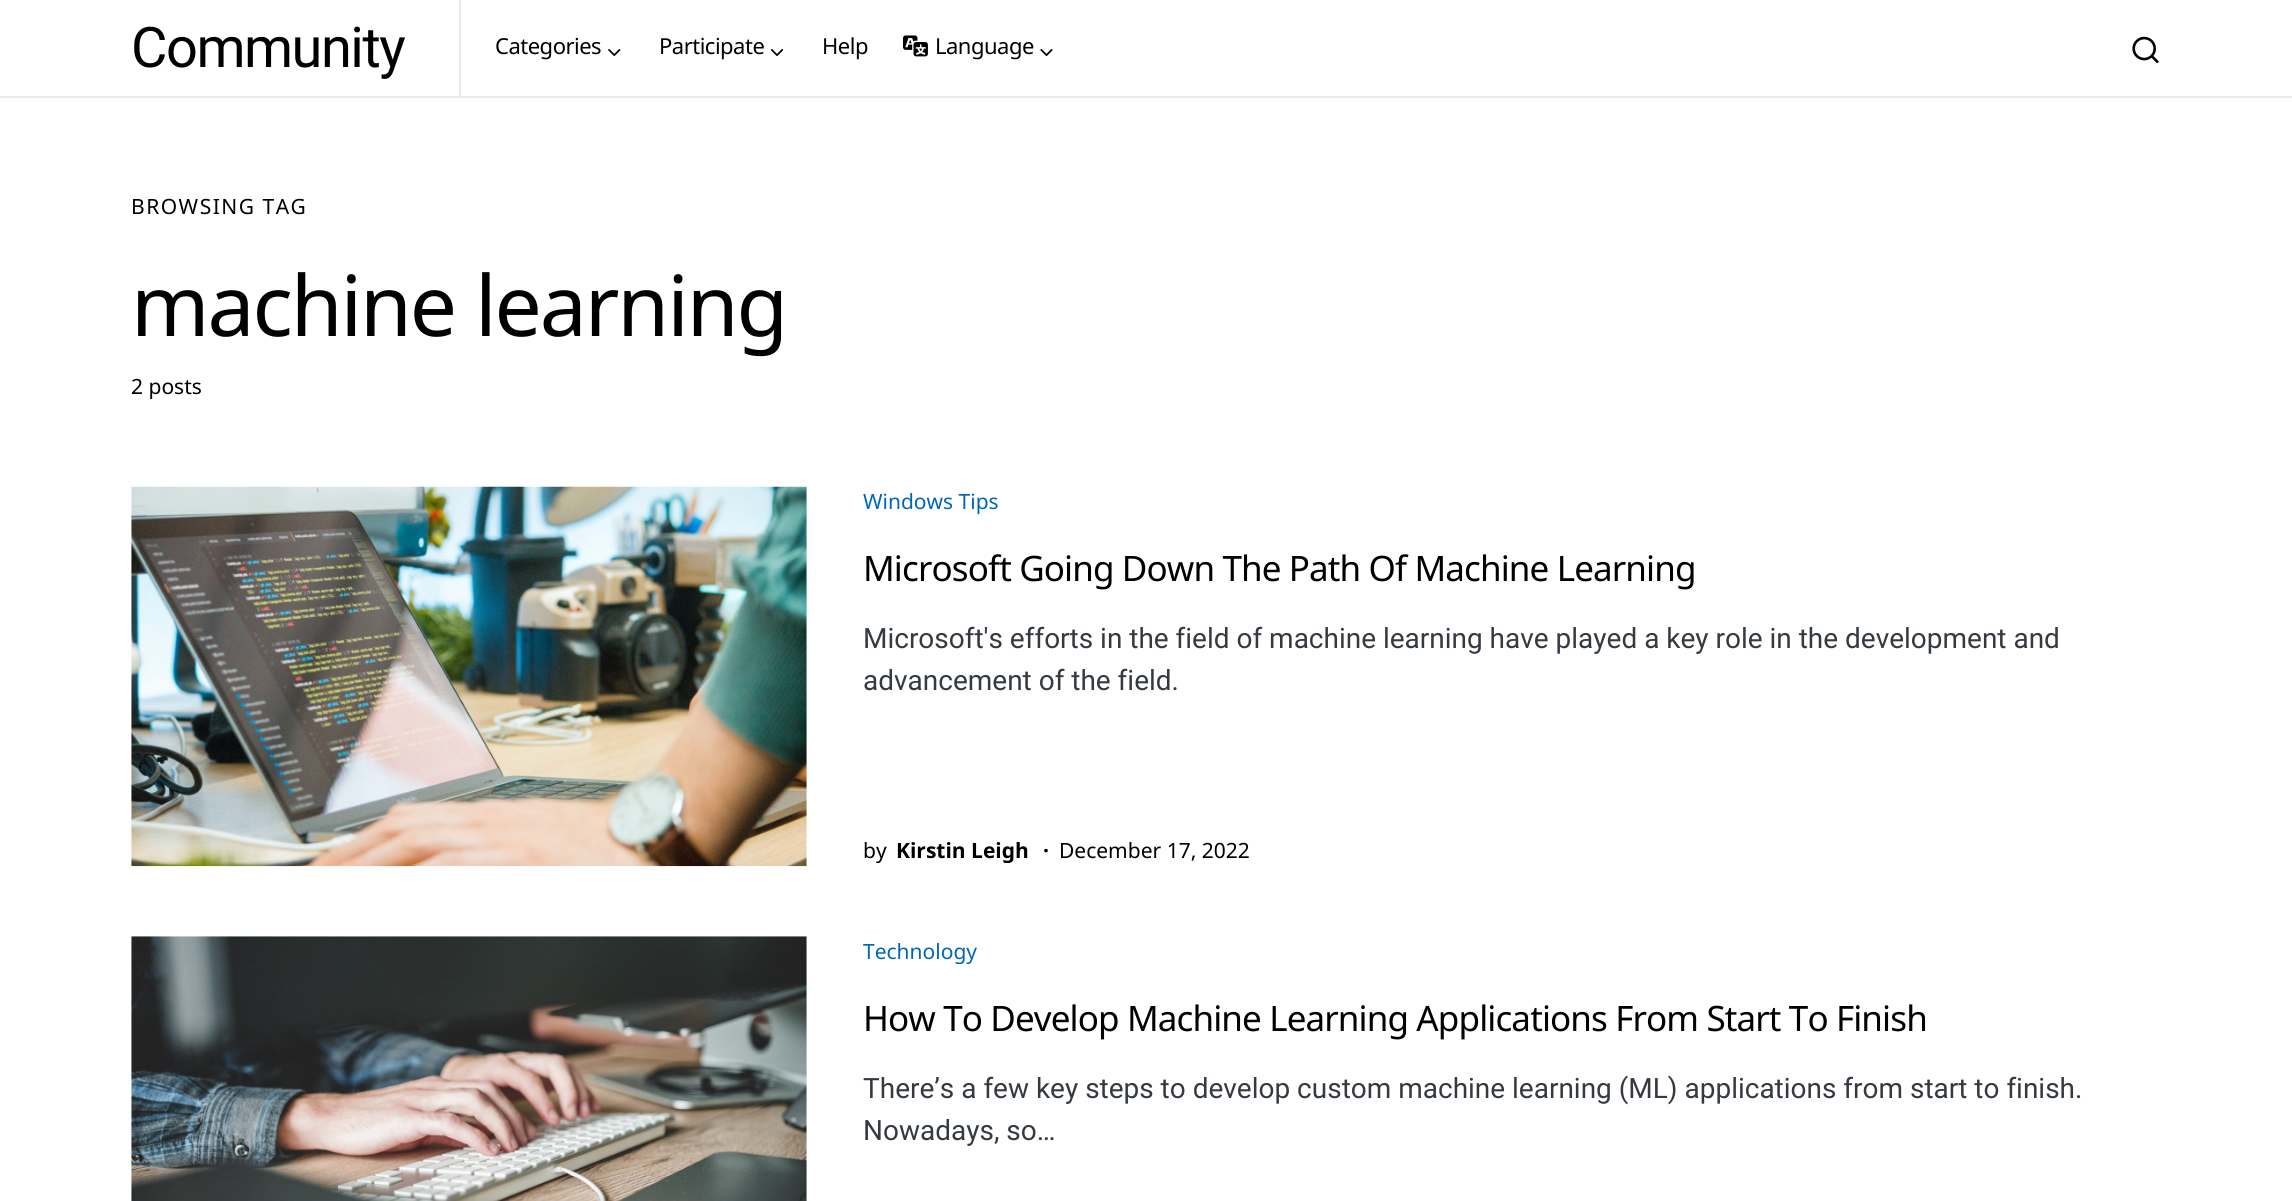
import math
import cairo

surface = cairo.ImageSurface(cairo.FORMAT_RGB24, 2292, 1201)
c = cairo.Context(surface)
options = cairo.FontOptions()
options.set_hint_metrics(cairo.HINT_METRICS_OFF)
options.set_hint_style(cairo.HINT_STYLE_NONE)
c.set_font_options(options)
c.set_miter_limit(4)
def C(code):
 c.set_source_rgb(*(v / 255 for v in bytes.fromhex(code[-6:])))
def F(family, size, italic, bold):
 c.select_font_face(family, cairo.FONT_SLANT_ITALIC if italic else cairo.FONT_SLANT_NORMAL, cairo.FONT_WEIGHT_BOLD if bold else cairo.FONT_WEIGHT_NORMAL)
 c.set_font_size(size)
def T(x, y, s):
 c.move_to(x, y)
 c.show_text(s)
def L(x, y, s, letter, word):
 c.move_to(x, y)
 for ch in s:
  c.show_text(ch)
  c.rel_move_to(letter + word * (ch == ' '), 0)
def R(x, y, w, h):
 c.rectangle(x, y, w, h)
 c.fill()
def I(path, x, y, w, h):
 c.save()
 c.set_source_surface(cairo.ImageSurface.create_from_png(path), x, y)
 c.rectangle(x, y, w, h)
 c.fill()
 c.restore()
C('ffffff')
c.paint()
C('e9ecef')
R(0,96,2292,2)
F('Roboto',56,0,0)
C('000000')
L(131,67,'Community',-1.5,0)
C('e9ecef')
R(459,0,2,96)
F('Noto Sans',22,0,0)
C('000000')
L(495,54,'Categories',-.5,0)
I('1.png',608,49,13,7)
L(659,54,'Participate',-.5,0)
I('2.png',770,49,14,7)
L(822,54,'Help',-.5,0)
I('3.png',903,35,25,22)
L(935,54,'Language',-.5,0)
I('4.png',1040,49,13,7)
I('5.png',2132,36,27,27)
F('Noto Sans',21,0,0)
L(131,214,'BROWSING TAG',1.5,0)
F('Noto Sans',84,0,0)
L(131,336,'machine learning',-2.1,0)
F('Noto Sans',21,0,0)
T(131,394,'2 posts')
I('6.png',131,486,676,381)
C('0067b8')
T(863,509,'Windows Tips')
F('Noto Sans',35,0,0)
C('000000')
L(863,581,'Microsoft Going Down The Path Of Machine Learning',-.88,0)
F('Roboto',28,0,0)
C('343a40')
T(863,648,'Microsoft\'s efforts in the field of machine learning have played a key role in the development and')
T(863,690,'advancement of the field.')
F('Noto Sans',21,0,0)
C('000000')
T(863,858,'by')
F('Noto Sans',21,0,1)
T(896,858,'Kirstin Leigh')
T(1043,858,'·')
F('Noto Sans',21,0,0)
T(1059,858,'December 17, 2022')
I('7.png',131,936,676,265)
C('0067b8')
T(863,959,'Technology')
F('Noto Sans',35,0,0)
C('000000')
L(863,1031,'How To Develop Machine Learning Applications From Start To Finish',-.88,0)
F('Roboto',28,0,0)
C('343a40')
T(863,1098,'There’s a few key steps to develop custom machine learning (ML) applications from start to finish.')
T(863,1140,'Nowadays, so…')
surface.write_to_png('o.png')
